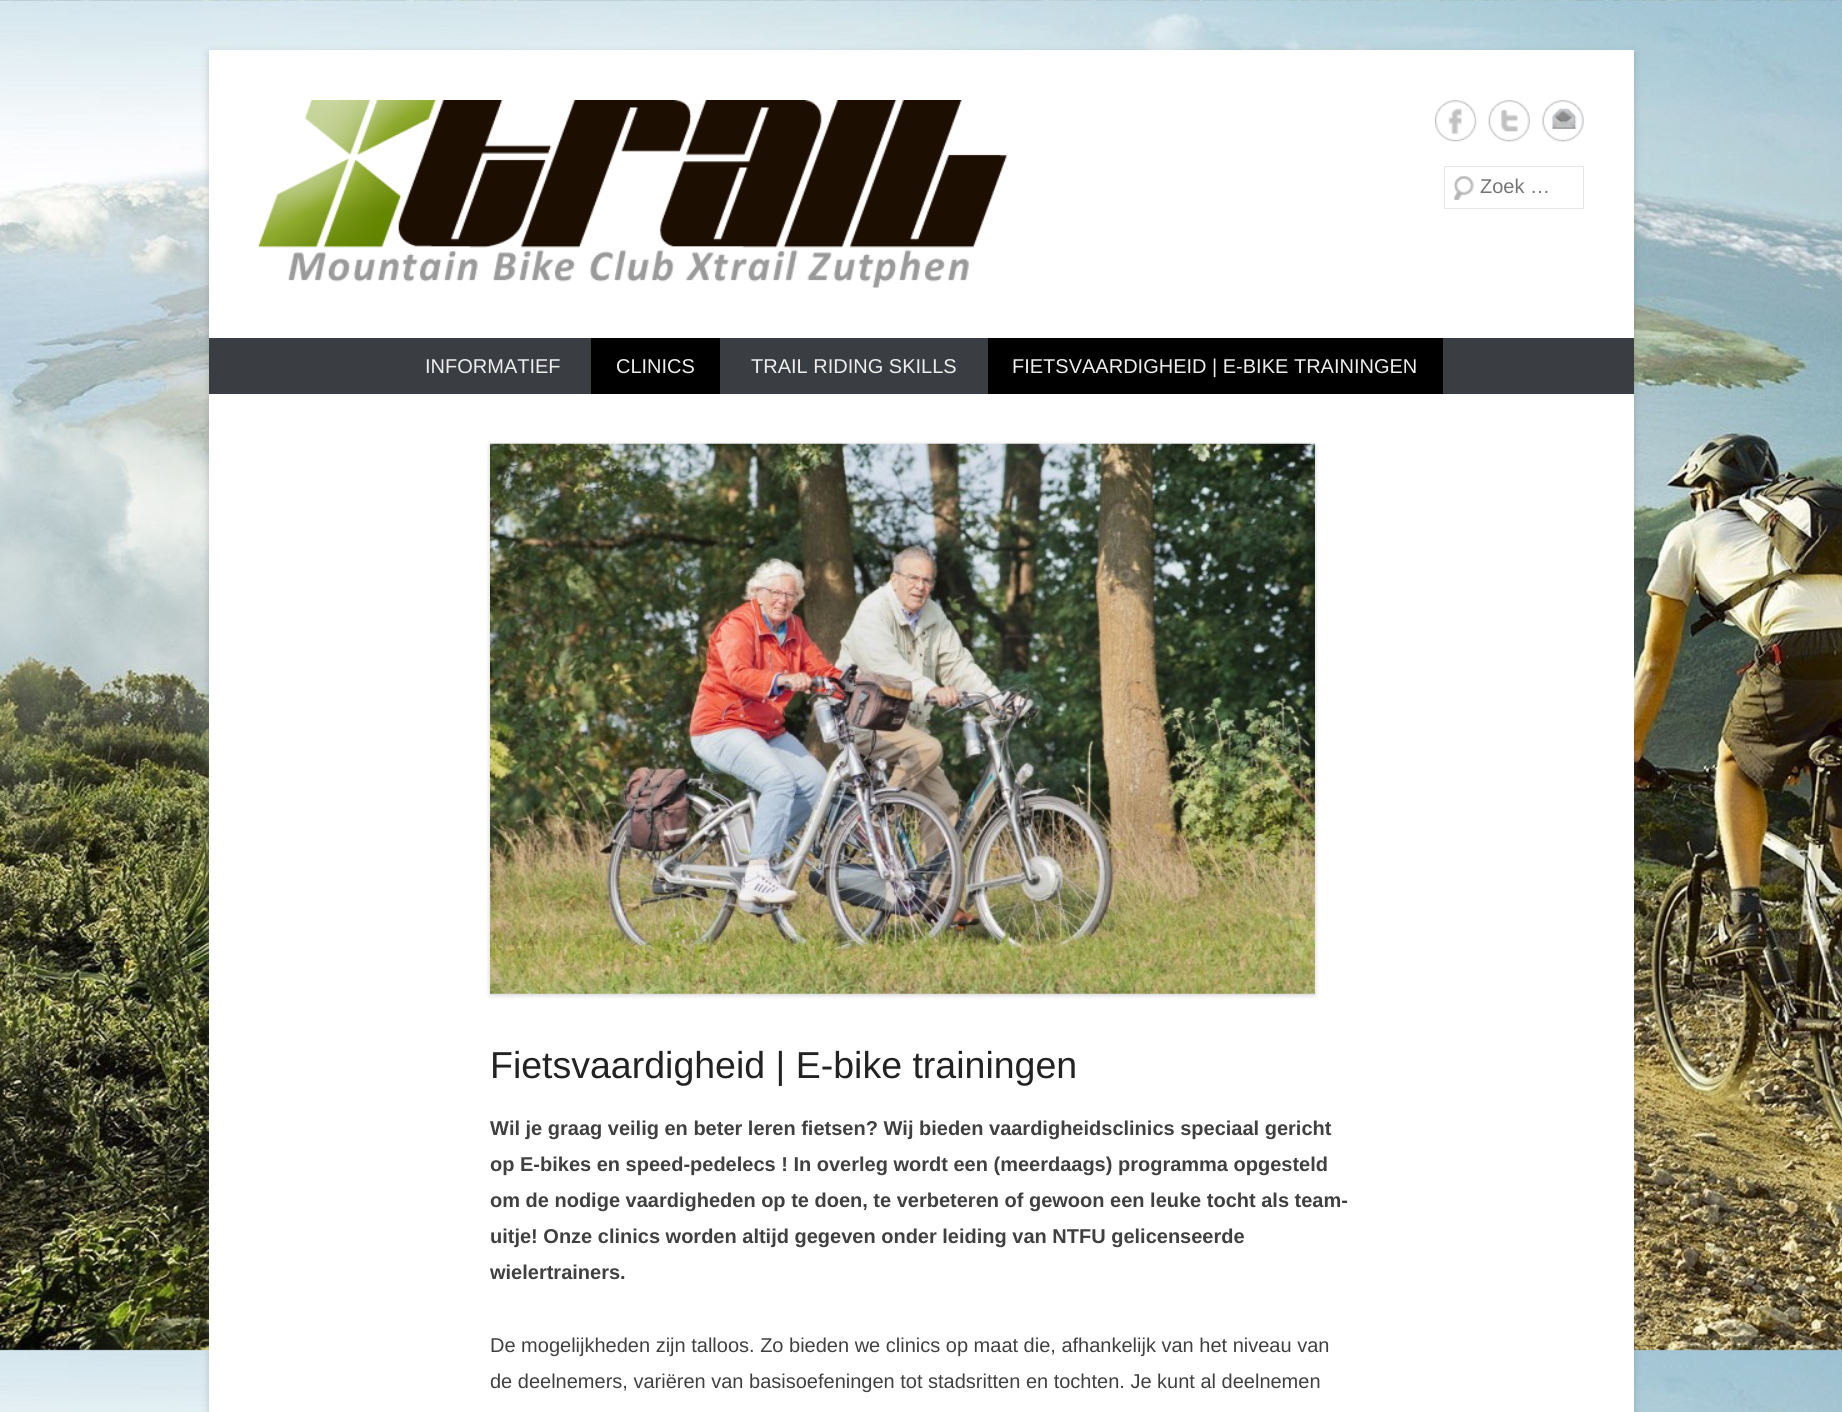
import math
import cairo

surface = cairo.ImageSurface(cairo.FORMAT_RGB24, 1842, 1412)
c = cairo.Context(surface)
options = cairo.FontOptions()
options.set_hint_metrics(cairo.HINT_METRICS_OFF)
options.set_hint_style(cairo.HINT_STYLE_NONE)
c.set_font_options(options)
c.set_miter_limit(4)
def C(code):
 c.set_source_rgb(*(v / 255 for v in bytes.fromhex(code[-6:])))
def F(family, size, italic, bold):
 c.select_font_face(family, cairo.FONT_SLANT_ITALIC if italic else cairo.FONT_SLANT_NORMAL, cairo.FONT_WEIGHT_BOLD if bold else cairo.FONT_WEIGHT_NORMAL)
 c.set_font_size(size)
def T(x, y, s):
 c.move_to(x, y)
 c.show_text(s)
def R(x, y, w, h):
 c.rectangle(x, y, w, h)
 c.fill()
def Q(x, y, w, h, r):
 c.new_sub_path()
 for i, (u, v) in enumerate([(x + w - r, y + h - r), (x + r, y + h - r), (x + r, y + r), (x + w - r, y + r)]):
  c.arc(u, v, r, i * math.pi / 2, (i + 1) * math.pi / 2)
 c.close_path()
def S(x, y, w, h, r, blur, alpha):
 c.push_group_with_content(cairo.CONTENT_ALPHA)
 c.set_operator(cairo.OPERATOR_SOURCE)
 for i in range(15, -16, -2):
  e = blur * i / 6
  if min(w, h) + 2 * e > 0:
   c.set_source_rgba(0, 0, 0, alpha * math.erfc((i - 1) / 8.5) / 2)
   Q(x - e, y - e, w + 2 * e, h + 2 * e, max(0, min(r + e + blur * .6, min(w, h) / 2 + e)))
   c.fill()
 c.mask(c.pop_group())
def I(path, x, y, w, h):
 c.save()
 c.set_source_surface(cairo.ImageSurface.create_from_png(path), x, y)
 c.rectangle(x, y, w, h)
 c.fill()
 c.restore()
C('ffffff')
c.paint()
I('1.png',0,0,1842,1412)
C('646464')
S(209,53,1425,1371,0,4,.3)
C('ffffff')
R(209,50,1425,1362)
I('2.png',258,100,750,188)
I('3.png',1435,100,42,42)
I('4.png',1488,100,42,42)
I('5.png',1542,100,42,42)
I('6.png',1453,175,21,25)
c.rectangle(1444.5,166.5,139,42)
C('e6e6e6')
c.set_line_width(1)
c.stroke()
F('Liberation Sans',20,0,0)
C('757575')
T(1480,193,'Zoek …')
C('3a3d41')
R(209,338,1425,56)
C('eeeeee')
T(425,373,'INFORMATIEF')
C('000000')
R(591,338,129,56)
C('eeeeee')
T(616,373,'CLINICS')
T(751,373,'TRAIL RIDING SKILLS')
C('000000')
R(988,338,455,56)
C('eeeeee')
T(1012,373,'FIETSVAARDIGHEID | E-BIKE TRAININGEN')
C('000000')
S(490,445,825,550,0,2.5,.2)
I('7.png',490,443,825,551)
F('Liberation Sans',37.5,0,0)
C('222222')
T(490,1078,'Fietsvaardigheid | E-bike trainingen')
F('Liberation Sans',20,0,1)
C('404040')
T(490,1135,'Wil je graag veilig en beter leren fietsen? Wij bieden vaardigheidsclinics speciaal gericht')
T(490,1171,'op E-bikes en speed-pedelecs ! In overleg wordt een (meerdaags) programma opgesteld')
T(490,1207,'om de nodige vaardigheden op te doen, te verbeteren of gewoon een leuke tocht als team-')
T(490,1243,'uitje! Onze clinics worden altijd gegeven onder leiding van NTFU gelicenseerde')
T(490,1279,'wielertrainers.')
F('Liberation Sans',20,0,0)
T(490,1352,'De mogelijkheden zijn talloos. Zo bieden we clinics op maat die, afhankelijk van het niveau van')
T(490,1388,'de deelnemers, variëren van basisoefeningen tot stadsritten en tochten. Je kunt al deelnemen')
surface.write_to_png('o.png')
